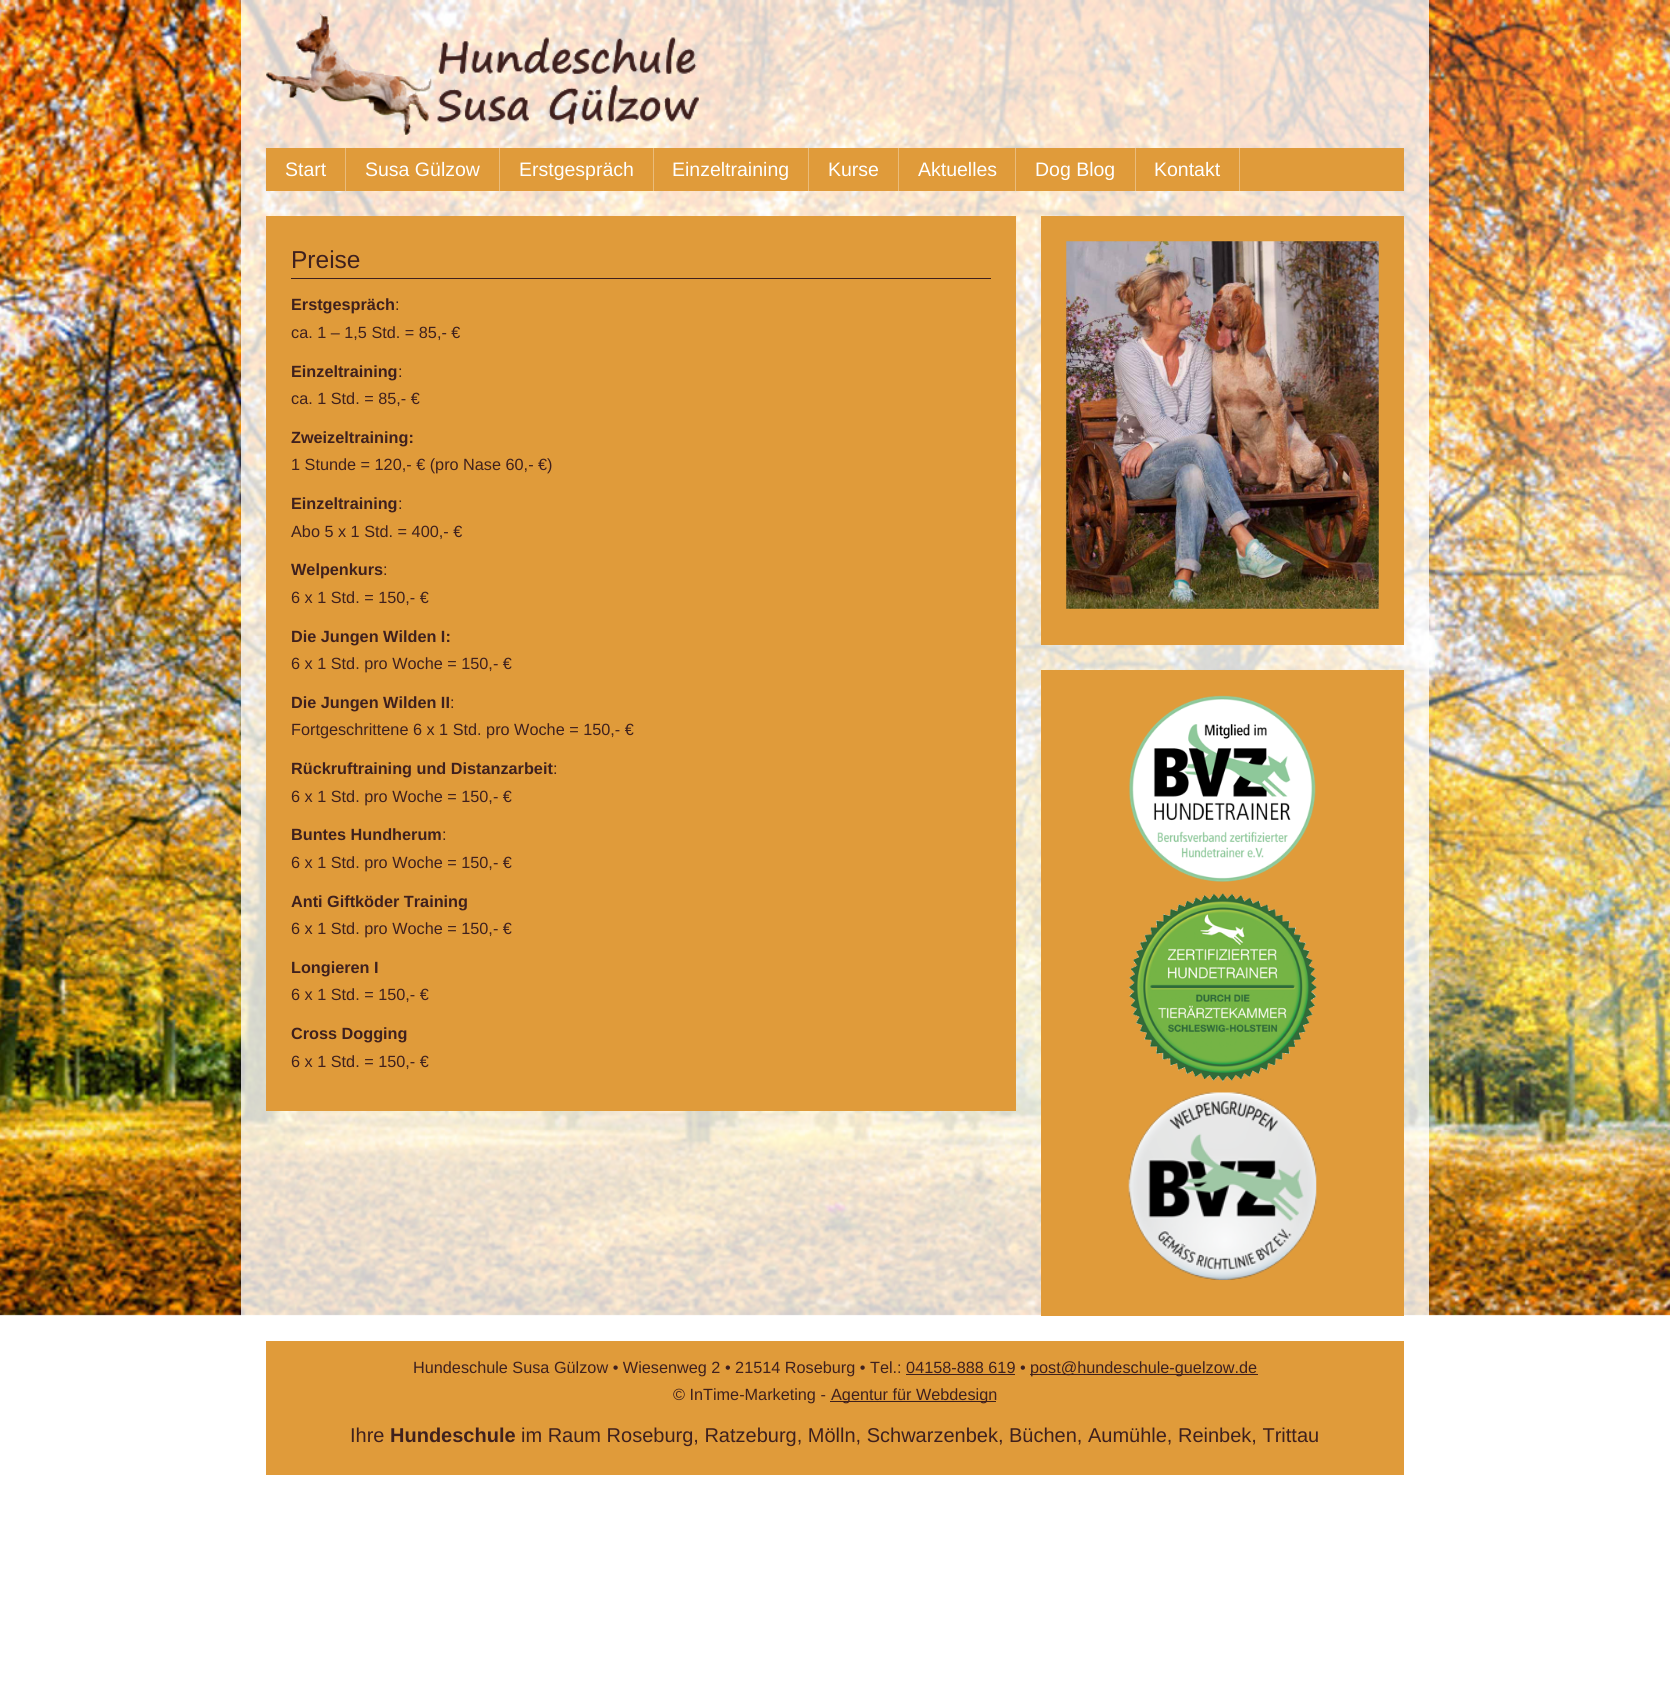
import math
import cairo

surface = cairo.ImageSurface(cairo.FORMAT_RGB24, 1670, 1703)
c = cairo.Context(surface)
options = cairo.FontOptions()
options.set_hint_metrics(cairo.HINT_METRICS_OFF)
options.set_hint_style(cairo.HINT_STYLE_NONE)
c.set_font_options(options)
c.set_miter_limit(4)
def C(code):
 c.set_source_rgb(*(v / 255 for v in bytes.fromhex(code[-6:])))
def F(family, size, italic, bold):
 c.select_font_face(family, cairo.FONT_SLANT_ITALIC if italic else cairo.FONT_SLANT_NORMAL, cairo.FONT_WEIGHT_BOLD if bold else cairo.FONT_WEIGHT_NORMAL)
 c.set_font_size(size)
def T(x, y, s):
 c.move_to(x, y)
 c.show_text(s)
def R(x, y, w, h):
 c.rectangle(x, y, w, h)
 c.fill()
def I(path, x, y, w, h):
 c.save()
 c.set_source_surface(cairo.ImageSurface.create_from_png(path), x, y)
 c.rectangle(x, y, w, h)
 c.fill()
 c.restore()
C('ffffff')
c.paint()
I('1.png',0,0,1670,1316)
c.set_source_rgba(1,1,1,0.8)
R(241,0,1188,216)
I('2.png',266,12,433,123)
C('e09b3a')
R(266,148,1138,43)
C('eabc7b')
R(345,148,1,43)
F('Liberation Sans',19.5,0,0)
C('ffffff')
T(285,176,'Start')
C('eabc7b')
R(499,148,1,43)
C('ffffff')
T(365,176,'Susa Gülzow')
C('eabc7b')
R(653,148,1,43)
C('ffffff')
T(519,176,'Erstgespräch')
C('eabc7b')
R(808,148,1,43)
C('ffffff')
T(672,176,'Einzeltraining')
C('eabc7b')
R(898,148,1,43)
C('ffffff')
T(828,176,'Kurse')
C('eabc7b')
R(1015,148,1,43)
C('ffffff')
T(918,176,'Aktuelles')
C('eabc7b')
R(1135,148,1,43)
C('ffffff')
T(1035,176,'Dog Blog')
C('eabc7b')
R(1239,148,1,43)
C('ffffff')
T(1154,176,'Kontakt')
c.set_source_rgba(1,1,1,0.8)
R(241,216,1188,1100)
C('e09b3a')
R(266,216,750,895)
C('3f201d')
R(291,278,700,1)
F('Liberation Sans',24.5,0,0)
T(291,268,'Preise')
F('Liberation Sans',16.25,0,1)
T(291,310,'Erstgespräch')
F('Liberation Sans',16.25,0,0)
T(395,310,':')
T(291,338,'ca. 1 – 1,5 Std. = 85,- €')
F('Liberation Sans',16.25,0,1)
T(291,377,'Einzeltraining')
F('Liberation Sans',16.25,0,0)
T(398,377,':')
T(291,404,'ca. 1 Std. = 85,- €')
F('Liberation Sans',16.25,0,1)
T(291,443,'Zweizeltraining:')
F('Liberation Sans',16.25,0,0)
T(291,470,'1 Stunde = 120,- € (pro Nase 60,- €)')
F('Liberation Sans',16.25,0,1)
T(291,509,'Einzeltraining')
F('Liberation Sans',16.25,0,0)
T(398,509,':')
T(291,537,'Abo 5 x 1 Std. = 400,- €')
F('Liberation Sans',16.25,0,1)
T(291,575,'Welpenkurs')
F('Liberation Sans',16.25,0,0)
T(383,575,':')
T(291,603,'6 x 1 Std. = 150,- €')
F('Liberation Sans',16.25,0,1)
T(291,642,'Die Jungen Wilden I:')
F('Liberation Sans',16.25,0,0)
T(291,669,'6 x 1 Std. pro Woche = 150,- €')
F('Liberation Sans',16.25,0,1)
T(291,708,'Die Jungen Wilden II')
F('Liberation Sans',16.25,0,0)
T(450,708,':')
T(291,735,'Fortgeschrittene 6 x 1 Std. pro Woche = 150,- €')
F('Liberation Sans',16.25,0,1)
T(291,774,'Rückruftraining und Distanzarbeit')
F('Liberation Sans',16.25,0,0)
T(553,774,':')
T(291,802,'6 x 1 Std. pro Woche = 150,- €')
F('Liberation Sans',16.25,0,1)
T(291,840,'Buntes Hundherum')
F('Liberation Sans',16.25,0,0)
T(442,840,':')
T(291,868,'6 x 1 Std. pro Woche = 150,- €')
F('Liberation Sans',16.25,0,1)
T(291,907,'Anti Giftköder Training')
F('Liberation Sans',16.25,0,0)
T(291,934,'6 x 1 Std. pro Woche = 150,- €')
F('Liberation Sans',16.25,0,1)
T(291,973,'Longieren I')
F('Liberation Sans',16.25,0,0)
T(291,1000,'6 x 1 Std. = 150,- €')
F('Liberation Sans',16.25,0,1)
T(291,1039,'Cross Dogging')
F('Liberation Sans',16.25,0,0)
T(291,1067,'6 x 1 Std. = 150,- €')
C('e09b3a')
R(1041,216,363,429)
I('3.png',1066,241,313,368)
R(1041,670,363,646)
I('4.png',1129,695,187,187)
I('5.png',1128,893,189,189)
I('6.png',1128,1092,189,188)
R(266,1341,1138,134)
C('3f201d')
T(413,1373,'Hundeschule Susa Gülzow • Wiesenweg 2 • 21514 Roseburg • Tel.: 04158-888 619 •')
R(1030,1374,228,1)
T(1030,1373,'post@hundeschule-guelzow.de')
R(906,1374,109,1)
T(673,1400,'© InTime-Marketing -')
R(830,1401,166,1)
T(831,1400,'Agentur für Webdesign')
F('Liberation Sans',20,0,0)
T(350,1442,'Ihre')
F('Liberation Sans',20,0,1)
T(390,1442,'Hundeschule')
F('Liberation Sans',20,0,0)
T(521,1442,'im Raum Roseburg, Ratzeburg, Mölln, Schwarzenbek, Büchen, Aumühle, Reinbek, Trittau')
surface.write_to_png('o.png')
